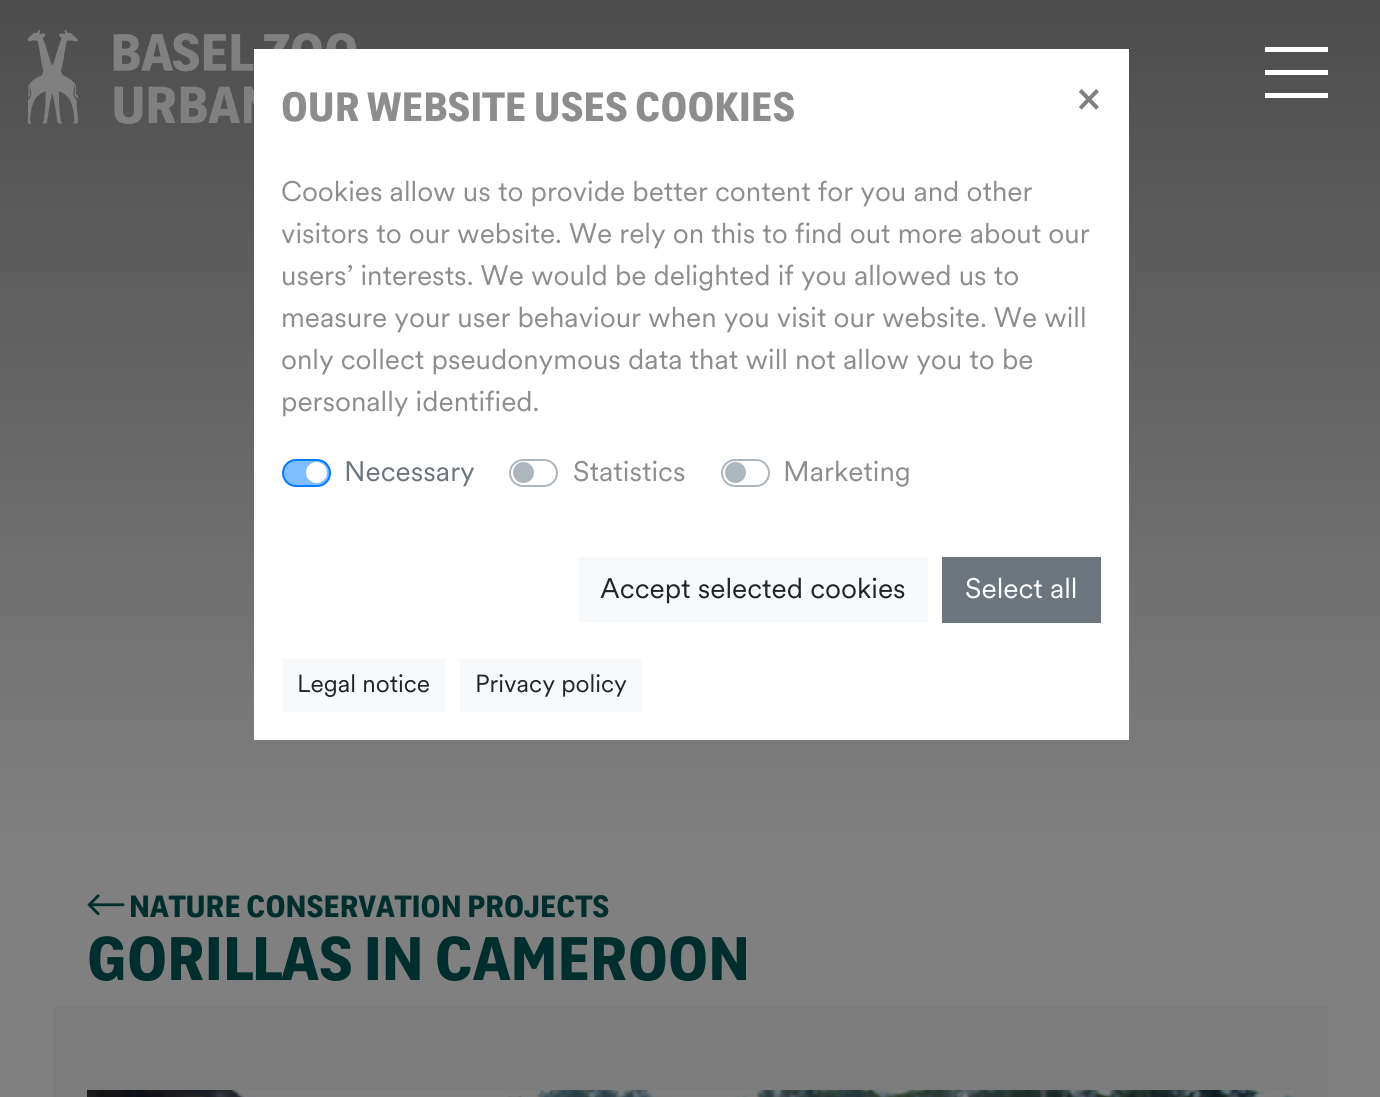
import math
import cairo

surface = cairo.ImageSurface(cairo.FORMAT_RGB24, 1380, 1097)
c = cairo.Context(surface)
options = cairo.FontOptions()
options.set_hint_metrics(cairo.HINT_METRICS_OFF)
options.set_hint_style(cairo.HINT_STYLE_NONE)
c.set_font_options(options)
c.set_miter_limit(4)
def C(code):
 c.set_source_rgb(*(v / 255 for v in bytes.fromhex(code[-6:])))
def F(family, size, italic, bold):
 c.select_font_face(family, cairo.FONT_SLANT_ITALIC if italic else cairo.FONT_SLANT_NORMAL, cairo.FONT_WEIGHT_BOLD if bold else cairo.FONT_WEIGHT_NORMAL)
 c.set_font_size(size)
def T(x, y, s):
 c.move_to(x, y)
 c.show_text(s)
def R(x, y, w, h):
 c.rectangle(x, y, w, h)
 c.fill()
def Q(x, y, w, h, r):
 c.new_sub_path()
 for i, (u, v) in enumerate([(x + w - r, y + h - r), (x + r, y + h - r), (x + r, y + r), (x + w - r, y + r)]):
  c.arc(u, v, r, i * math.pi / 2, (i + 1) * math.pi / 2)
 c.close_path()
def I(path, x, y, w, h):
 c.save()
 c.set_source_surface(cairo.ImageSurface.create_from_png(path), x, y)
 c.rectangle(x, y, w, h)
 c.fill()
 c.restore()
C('ffffff')
c.paint()
gradient = cairo.LinearGradient(690,0,690,840)
gradient.add_color_stop_rgba(0,0.302,0.302,0.302,1)
gradient.add_color_stop_rgba(1,0.502,0.502,0.502,1)
c.set_source(gradient)
R(0,0,1380,840)
I('1.png',28,30,329,95)
C('ffffff')
R(1265,47,63,5)
R(1265,70,63,5)
R(1265,93,63,5)
R(254,49,875,691)
F('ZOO',42,0,1)
C('8c8d8e')
T(281,121,'OUR WEBSITE USES COOKIES')
F('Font',42,0,1)
C('808080')
T(1077,112,'×')
F('Font',28,0,0)
C('8c8d8e')
T(281,201,'Cookies allow us to provide better content for you and other')
T(281,243,'visitors to our website. We rely on this to find out more about our')
T(281,285,'users’ interests. We would be delighted if you allowed us to')
T(281,327,'measure your user behaviour when you visit our website. We will')
T(281,369,'only collect pseudonymous data that will not allow you to be')
T(281,411,'personally identified.')
C('80bdff')
Q(283,460,47,26,13)
c.fill_preserve()
C('007bff')
c.stroke()
C('6c757d')
T(344,481,'Necessary')
C('ffffff')
c.new_path()
c.arc(316.5,472.5,10.5,0,2 * math.pi)
c.fill()
Q(510,460,47,26,13)
C('adb5bd')
c.stroke()
C('8c8d8e')
T(573,481,'Statistics')
C('adb5bd')
c.new_path()
c.arc(523.5,472.5,10.5,0,2 * math.pi)
c.fill()
Q(722,460,47,26,13)
c.stroke()
C('8c8d8e')
T(783,481,'Marketing')
C('adb5bd')
c.new_path()
c.arc(735.5,472.5,10.5,0,2 * math.pi)
c.fill()
C('f8f9fa')
R(578,557,350,66)
C('212529')
T(600,598,'Accept selected cookies')
C('6c757d')
R(942,557,159,66)
C('ffffff')
T(965,598,'Select all')
C('f8f9fa')
R(282,658,164,54)
F('Font',24.5,0,0)
C('212529')
T(297,692,'Legal notice')
C('f8f9fa')
R(460,658,182,54)
C('212529')
T(475,692,'Privacy policy')
C('808080')
R(0,840,1380,166)
I('2.png',87,894,38,22)
F('ZOO',31.5,0,1)
C('002e2d')
T(129,917,'NATURE CONSERVATION PROJECTS')
F('ZOO',63,0,1)
T(87,980,'GORILLAS IN CAMEROON')
C('7c7c7c')
R(53,1006,1275,91)
C('808080')
R(1328,1006,52,91)
R(0,1006,53,91)
I('3.png',87,1090,1207,7)
surface.write_to_png('o.png')
